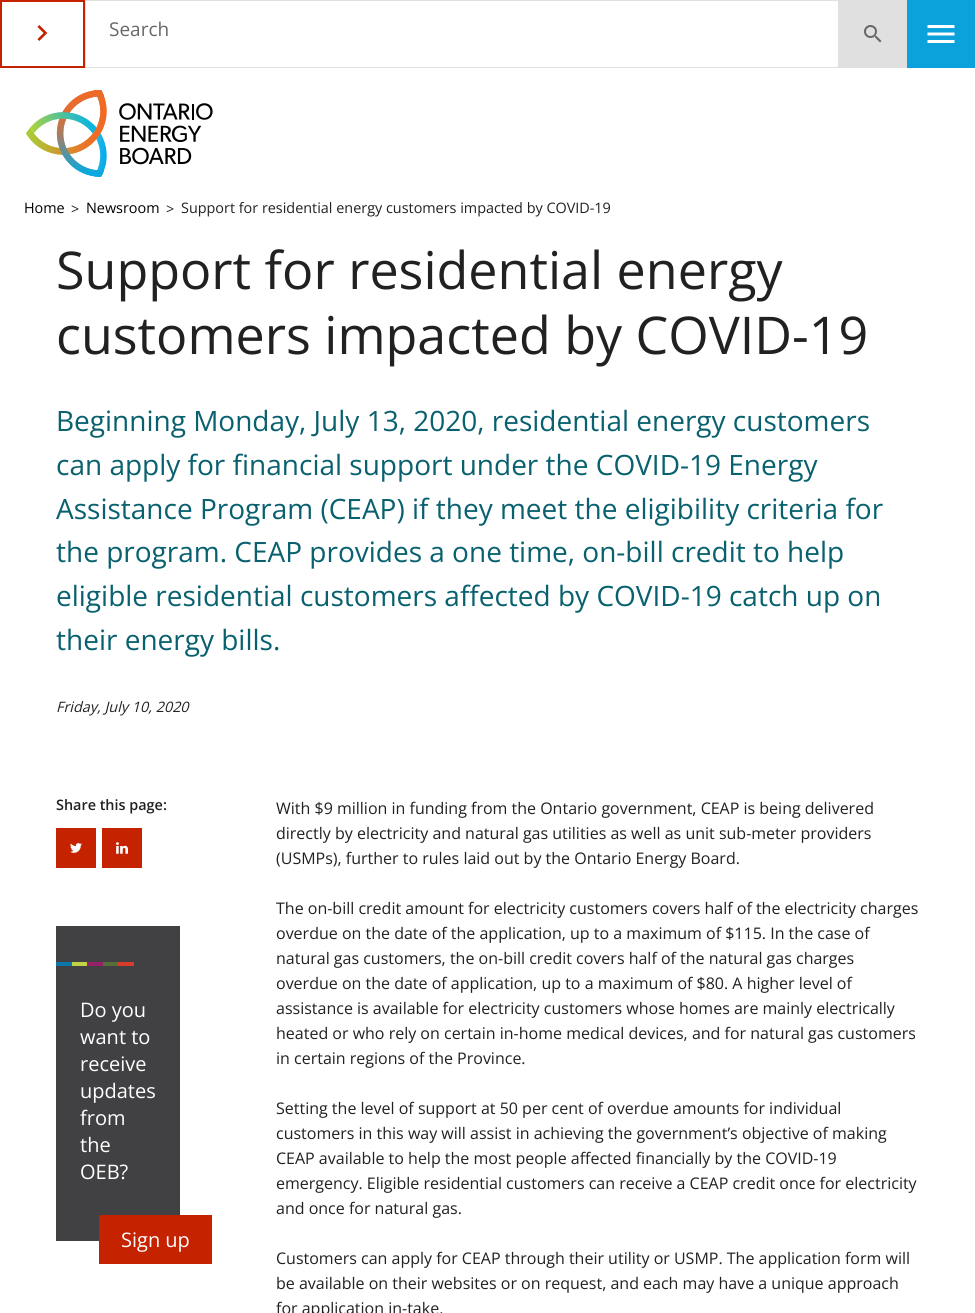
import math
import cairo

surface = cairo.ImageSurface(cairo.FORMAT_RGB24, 975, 1313)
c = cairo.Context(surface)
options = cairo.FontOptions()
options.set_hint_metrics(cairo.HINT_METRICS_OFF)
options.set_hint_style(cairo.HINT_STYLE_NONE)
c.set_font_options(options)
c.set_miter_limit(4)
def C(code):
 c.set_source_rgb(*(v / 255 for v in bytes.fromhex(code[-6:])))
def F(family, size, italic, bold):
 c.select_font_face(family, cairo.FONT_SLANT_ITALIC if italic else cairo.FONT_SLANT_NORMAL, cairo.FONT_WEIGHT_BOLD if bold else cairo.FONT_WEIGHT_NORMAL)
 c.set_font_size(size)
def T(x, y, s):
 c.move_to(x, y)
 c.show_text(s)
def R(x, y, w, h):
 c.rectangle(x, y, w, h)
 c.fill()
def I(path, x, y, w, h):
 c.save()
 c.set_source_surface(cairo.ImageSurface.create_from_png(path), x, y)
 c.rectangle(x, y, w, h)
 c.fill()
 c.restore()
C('ffffff')
c.paint()
c.rectangle(1,1,83,66)
C('c52200')
c.stroke()
I('1.png',37,25,11,16)
c.rectangle(85.5,.5,753,67)
C('e0e0e0')
c.set_line_width(1)
c.stroke()
F('Open Sans',19,0,0)
C('676767')
T(109,36,'Search')
C('e0e0e0')
R(839,0,68,68)
I('2.png',864,25,18,18)
C('0ba2db')
R(907,0,68,68)
I('3.png',927,25,28,18)
I('4.png',26,90,187,87)
F('Open Sans',14.4,0,0)
C('000000')
T(24,213,'Home')
C('212121')
T(71,214,'>')
C('000000')
T(86,213,'Newsroom')
C('212121')
T(166,214,'>')
T(181,213,'Support for residential energy customers impacted by COVID-19')
F('Open Sans',52,0,0)
T(56,289,'Support for residential energy')
T(56,354,'customers impacted by COVID-19')
F('Open Sans',28,0,0)
C('09616f')
T(56,431,'Beginning Monday, July 13, 2020, residential energy customers')
T(56,475,'can apply for financial support under the COVID-19 Energy')
T(56,519,'Assistance Program (CEAP) if they meet the eligibility criteria for')
T(56,562,'the program. CEAP provides a one time, on-bill credit to help')
T(56,606,'eligible residential customers affected by COVID-19 catch up on')
T(56,650,'their energy bills.')
F('Open Sans',14.4,1,0)
C('212121')
T(56,712,'Friday, July 10, 2020')
F('Open Sans SemiBold',14.4,0,0)
T(56,810,'Share this page:')
C('c52200')
R(56,828,40,40)
I('5.png',70,843,12,10)
R(102,828,40,40)
I('6.png',116,842,12,12)
C('414042')
R(56,926,124,315)
C('0f76a9')
R(56,962,16,4)
C('c0d342')
R(72,962,15,4)
C('962169')
R(87,962,16,4)
C('577039')
R(103,962,15,4)
C('d73d28')
R(118,962,16,4)
F('Open Sans',20,0,0)
C('ffffff')
T(80,1017,'Do you')
T(80,1044,'want to')
T(80,1071,'receive')
T(80,1098,'updates')
T(80,1125,'from')
T(80,1152,'the')
T(80,1179,'OEB?')
C('c52200')
R(99,1215,113,49)
C('ffffff')
T(121,1247,'Sign up')
F('Open Sans',16,0,0)
C('212121')
T(276,814,'With $9 million in funding from the Ontario government, CEAP is being delivered')
T(276,839,'directly by electricity and natural gas utilities as well as unit sub-meter providers')
T(276,864,'(USMPs), further to rules laid out by the Ontario Energy Board.')
T(276,914,'The on-bill credit amount for electricity customers covers half of the electricity charges')
T(276,939,'overdue on the date of the application, up to a maximum of $115. In the case of')
T(276,964,'natural gas customers, the on-bill credit covers half of the natural gas charges')
T(276,989,'overdue on the date of application, up to a maximum of $80. A higher level of')
T(276,1014,'assistance is available for electricity customers whose homes are mainly electrically')
T(276,1039,'heated or who rely on certain in-home medical devices, and for natural gas customers')
T(276,1064,'in certain regions of the Province.')
T(276,1114,'Setting the level of support at 50 per cent of overdue amounts for individual')
T(276,1139,'customers in this way will assist in achieving the government’s objective of making')
T(276,1164,'CEAP available to help the most people affected financially by the COVID-19')
T(276,1189,'emergency. Eligible residential customers can receive a CEAP credit once for electricity')
T(276,1214,'and once for natural gas.')
T(276,1264,'Customers can apply for CEAP through their utility or USMP. The application form will')
T(276,1289,'be available on their websites or on request, and each may have a unique approach')
T(276,1314,'for application in-take.')
surface.write_to_png('o.png')
